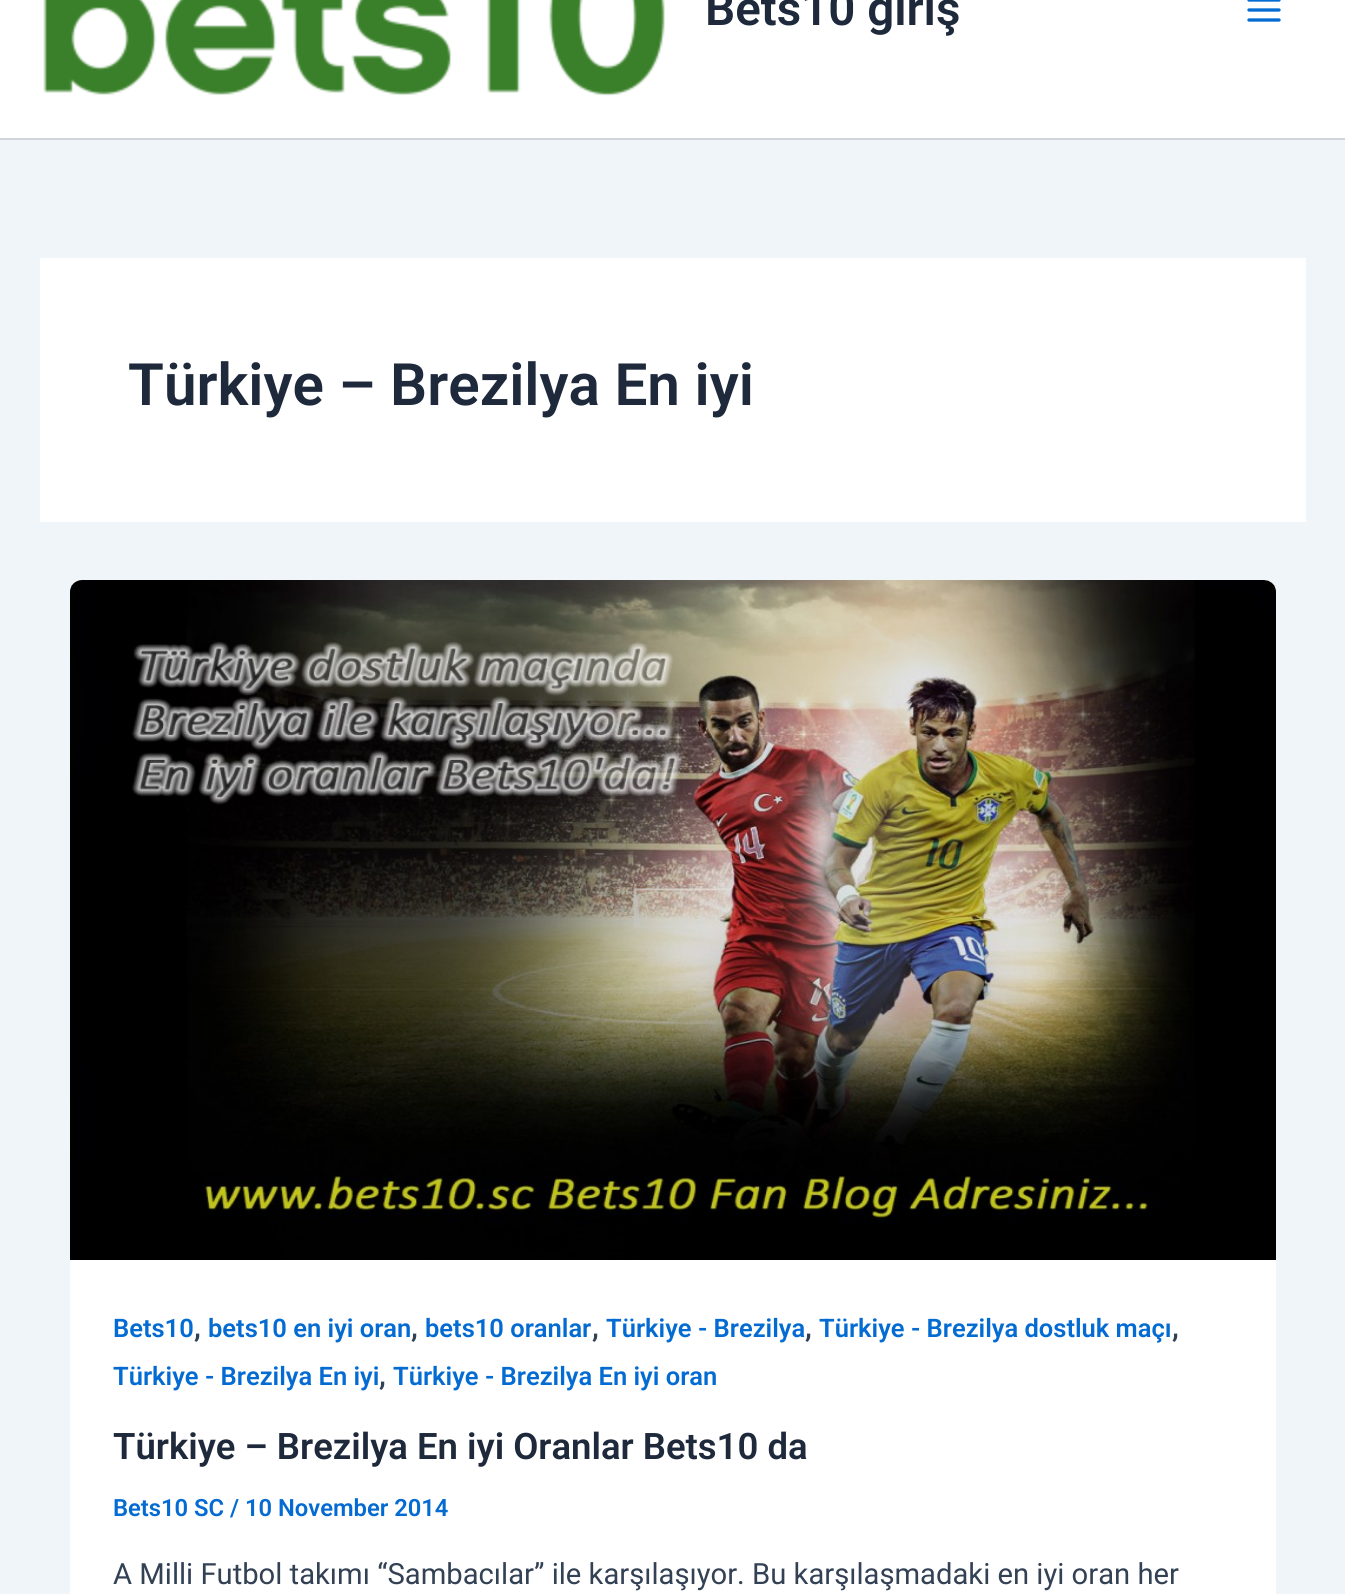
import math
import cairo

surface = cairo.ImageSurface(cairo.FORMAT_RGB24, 1345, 1594)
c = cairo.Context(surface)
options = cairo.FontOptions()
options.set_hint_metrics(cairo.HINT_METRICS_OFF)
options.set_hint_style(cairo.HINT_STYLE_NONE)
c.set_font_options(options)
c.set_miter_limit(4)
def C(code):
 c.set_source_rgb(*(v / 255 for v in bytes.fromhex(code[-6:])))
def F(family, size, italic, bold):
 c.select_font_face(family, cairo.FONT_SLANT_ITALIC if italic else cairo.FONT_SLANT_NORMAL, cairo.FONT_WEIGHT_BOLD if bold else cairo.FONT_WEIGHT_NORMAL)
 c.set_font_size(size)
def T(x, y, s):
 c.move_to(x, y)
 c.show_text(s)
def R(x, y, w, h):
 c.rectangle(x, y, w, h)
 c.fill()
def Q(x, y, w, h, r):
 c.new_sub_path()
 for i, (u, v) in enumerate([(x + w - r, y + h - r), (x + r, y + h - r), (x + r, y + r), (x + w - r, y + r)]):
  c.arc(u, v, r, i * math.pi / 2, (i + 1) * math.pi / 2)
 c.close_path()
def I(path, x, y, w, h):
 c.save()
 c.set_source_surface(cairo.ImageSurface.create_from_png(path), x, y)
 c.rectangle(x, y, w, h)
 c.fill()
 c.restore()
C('f0f5fa')
c.paint()
C('ffffff')
R(0,0,1345,138)
C('d1d5db')
R(0,138,1345,2)
I('1.png',43,0,622,96)
F('Roboto SemiBold',47.5,0,0)
C('1e293b')
T(705,25,'Bets10 giriş')
I('2.png',1247,0,34,22)
C('ffffff')
R(40,258,1266,264)
F('Roboto SemiBold',58.4,0,0)
C('1e293b')
T(128,405,'Türkiye – Brezilya En iyi')
C('ffffff')
Q(70,580,1206,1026,12)
c.fill()
I('3.png',70,580,1206,680)
F('Roboto SemiBold',25.5,0,0)
C('046bd2')
T(113,1337,'Bets10')
F('Roboto SemiBold',29.2,0,0)
C('334155')
T(194,1337,',')
F('Roboto SemiBold',25.5,0,0)
C('046bd2')
T(208,1337,'bets10 en iyi oran')
F('Roboto SemiBold',29.2,0,0)
C('334155')
T(411,1337,',')
F('Roboto SemiBold',25.5,0,0)
C('046bd2')
T(425,1337,'bets10 oranlar')
F('Roboto SemiBold',29.2,0,0)
C('334155')
T(592,1337,',')
F('Roboto SemiBold',25.5,0,0)
C('046bd2')
T(606,1337,'Türkiye - Brezilya')
F('Roboto SemiBold',29.2,0,0)
C('334155')
T(805,1337,',')
F('Roboto SemiBold',25.5,0,0)
C('046bd2')
T(819,1337,'Türkiye - Brezilya dostluk maçı')
F('Roboto SemiBold',29.2,0,0)
C('334155')
T(1172,1337,',')
F('Roboto SemiBold',25.5,0,0)
C('046bd2')
T(113,1385,'Türkiye - Brezilya En iyi')
F('Roboto SemiBold',29.2,0,0)
C('334155')
T(379,1385,',')
F('Roboto SemiBold',25.5,0,0)
C('046bd2')
T(393,1385,'Türkiye - Brezilya En iyi oran')
F('Roboto SemiBold',36.5,0,0)
C('1e293b')
T(113,1459,'Türkiye – Brezilya En iyi Oranlar Bets10 da')
F('Roboto SemiBold',23.75,0,0)
C('046bd2')
T(113,1516,'Bets10 SC / 10 November 2014')
F('Roboto',29.2,0,0)
C('334155')
T(113,1584,'A Milli Futbol takımı “Sambacılar” ile karşılaşıyor. Bu karşılaşmadaki en iyi oran her')
surface.write_to_png('o.png')
